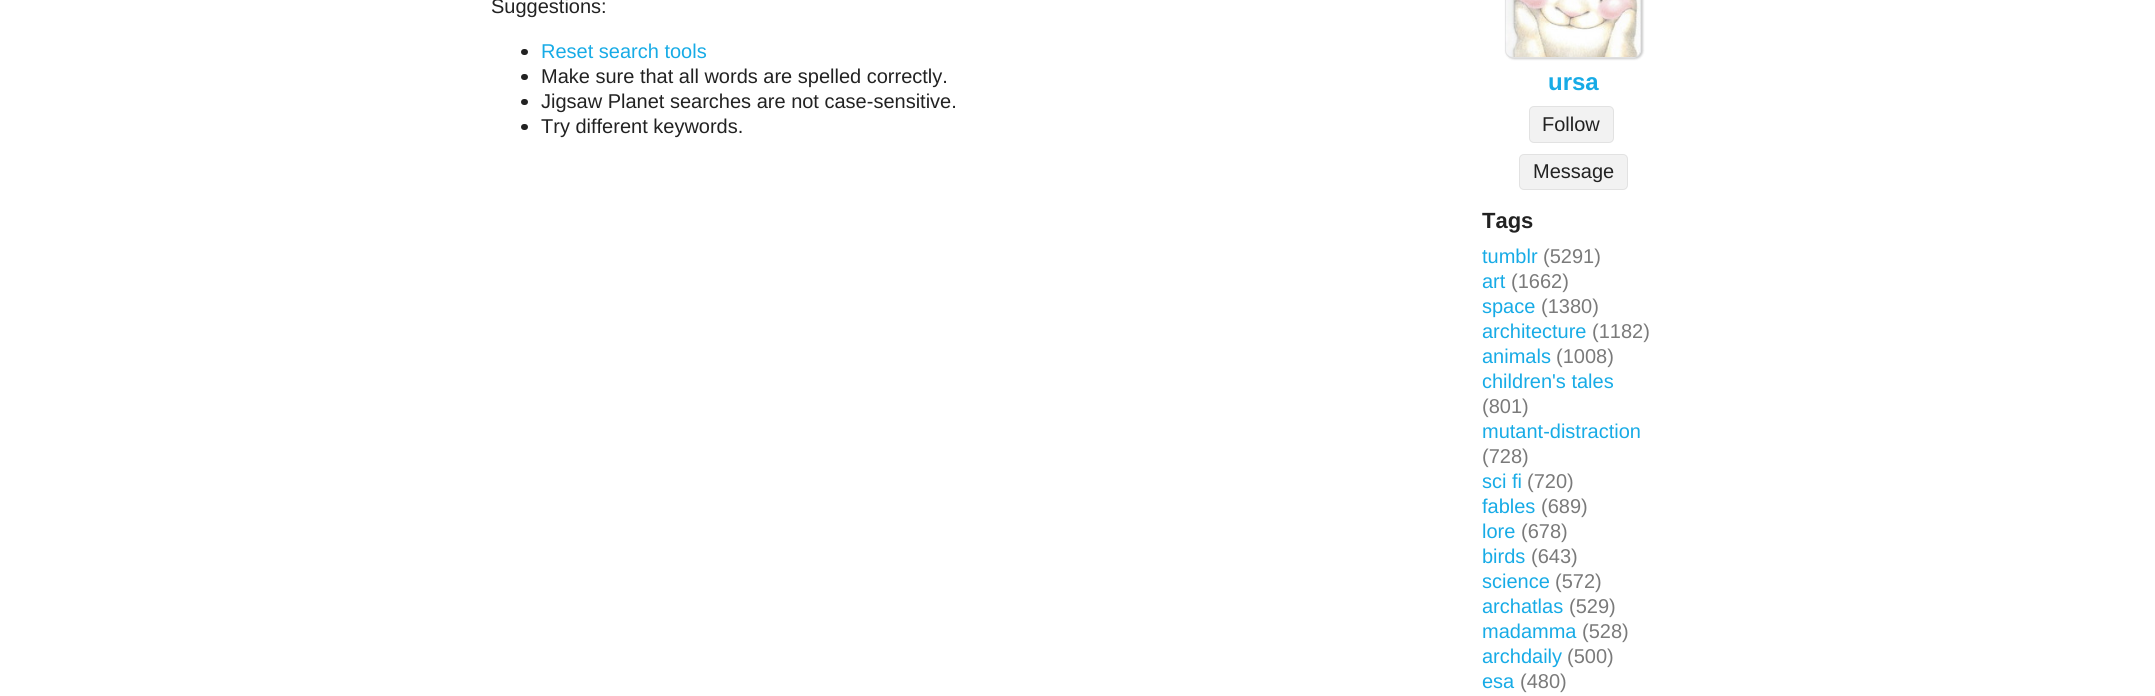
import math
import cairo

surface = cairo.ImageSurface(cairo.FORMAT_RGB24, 2155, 696)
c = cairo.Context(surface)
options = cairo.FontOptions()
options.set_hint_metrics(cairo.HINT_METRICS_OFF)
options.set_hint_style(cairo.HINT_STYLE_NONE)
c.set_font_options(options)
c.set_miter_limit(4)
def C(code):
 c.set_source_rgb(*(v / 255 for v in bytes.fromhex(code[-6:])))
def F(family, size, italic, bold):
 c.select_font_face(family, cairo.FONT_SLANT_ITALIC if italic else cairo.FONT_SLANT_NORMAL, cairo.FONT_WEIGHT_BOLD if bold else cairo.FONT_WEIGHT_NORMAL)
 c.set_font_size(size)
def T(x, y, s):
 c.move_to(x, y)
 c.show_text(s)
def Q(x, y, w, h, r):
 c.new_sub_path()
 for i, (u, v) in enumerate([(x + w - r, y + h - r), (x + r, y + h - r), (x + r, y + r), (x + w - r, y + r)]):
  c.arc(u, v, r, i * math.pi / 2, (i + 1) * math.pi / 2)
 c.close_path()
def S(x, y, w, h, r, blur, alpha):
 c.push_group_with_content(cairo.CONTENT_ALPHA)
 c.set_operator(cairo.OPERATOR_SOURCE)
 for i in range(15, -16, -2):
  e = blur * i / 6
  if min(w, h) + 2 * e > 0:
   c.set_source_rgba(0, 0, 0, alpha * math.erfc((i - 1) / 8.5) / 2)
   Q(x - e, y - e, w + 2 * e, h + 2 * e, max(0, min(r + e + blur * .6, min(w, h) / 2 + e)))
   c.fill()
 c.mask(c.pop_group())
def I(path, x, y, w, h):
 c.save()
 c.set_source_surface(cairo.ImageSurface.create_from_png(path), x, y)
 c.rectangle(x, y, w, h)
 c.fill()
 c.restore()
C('ffffff')
c.paint()
F('Liberation Sans',20,0,0)
C('222222')
T(491,13,'Suggestions:')
Q(521,49,7,6,3)
c.fill()
C('17abe6')
T(541,58,'Reset search tools')
C('222222')
Q(521,74,7,6,3)
c.fill()
T(541,83,'Make sure that all words are spelled correctly.')
Q(521,99,7,6,3)
c.fill()
T(541,108,'Jigsaw Planet searches are not case-sensitive.')
Q(521,124,7,6,3)
c.fill()
T(541,133,'Try different keywords.')
C('000000')
S(1506,-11,137,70,8,1,.2)
C('f0f0f0')
Q(1505,-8,136,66,8)
c.fill()
I('1.png',1505,0,136,57)
Q(1505.5,-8.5,135,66,7.5)
c.set_source_rgba(0,0,0,0.07)
c.set_line_width(1)
c.stroke()
F('Liberation Sans',24,0,1)
C('17abe6')
T(1548,90,'ursa')
C('f2f2f2')
Q(1529,106,85,37,5)
c.fill()
Q(1529.5,106.5,84,36,4.5)
c.set_source_rgba(0,0,0,0.07)
c.stroke()
F('Liberation Sans',20,0,0)
C('222222')
T(1542,131,'Follow')
C('f2f2f2')
Q(1519,154,109,36,5)
c.fill()
Q(1519.5,154.5,108,35,4.5)
c.set_source_rgba(0,0,0,0.07)
c.stroke()
C('222222')
T(1533,178,'Message')
F('Liberation Sans',22,0,1)
T(1482,228,'Tags')
F('Liberation Sans',20,0,0)
C('17abe6')
T(1482,263,'tumblr')
C('7a7a7a')
T(1543,263,'(5291)')
C('17abe6')
T(1482,288,'art')
C('7a7a7a')
T(1511,288,'(1662)')
C('17abe6')
T(1482,313,'space')
C('7a7a7a')
T(1541,313,'(1380)')
C('17abe6')
T(1482,338,'architecture')
C('7a7a7a')
T(1592,338,'(1182)')
C('17abe6')
T(1482,363,'animals')
C('7a7a7a')
T(1556,363,'(1008)')
C('17abe6')
T(1482,388,'children\'s tales')
C('7a7a7a')
T(1482,413,'(801)')
C('17abe6')
T(1482,438,'mutant-distraction')
C('7a7a7a')
T(1482,463,'(728)')
C('17abe6')
T(1482,488,'sci fi')
C('7a7a7a')
T(1527,488,'(720)')
C('17abe6')
T(1482,513,'fables')
C('7a7a7a')
T(1541,513,'(689)')
C('17abe6')
T(1482,538,'lore')
C('7a7a7a')
T(1521,538,'(678)')
C('17abe6')
T(1482,563,'birds')
C('7a7a7a')
T(1531,563,'(643)')
C('17abe6')
T(1482,588,'science')
C('7a7a7a')
T(1555,588,'(572)')
C('17abe6')
T(1482,613,'archatlas')
C('7a7a7a')
T(1569,613,'(529)')
C('17abe6')
T(1482,638,'madamma')
C('7a7a7a')
T(1582,638,'(528)')
C('17abe6')
T(1482,663,'archdaily')
C('7a7a7a')
T(1567,663,'(500)')
C('17abe6')
T(1482,688,'esa')
C('7a7a7a')
T(1520,688,'(480)')
surface.write_to_png('o.png')
